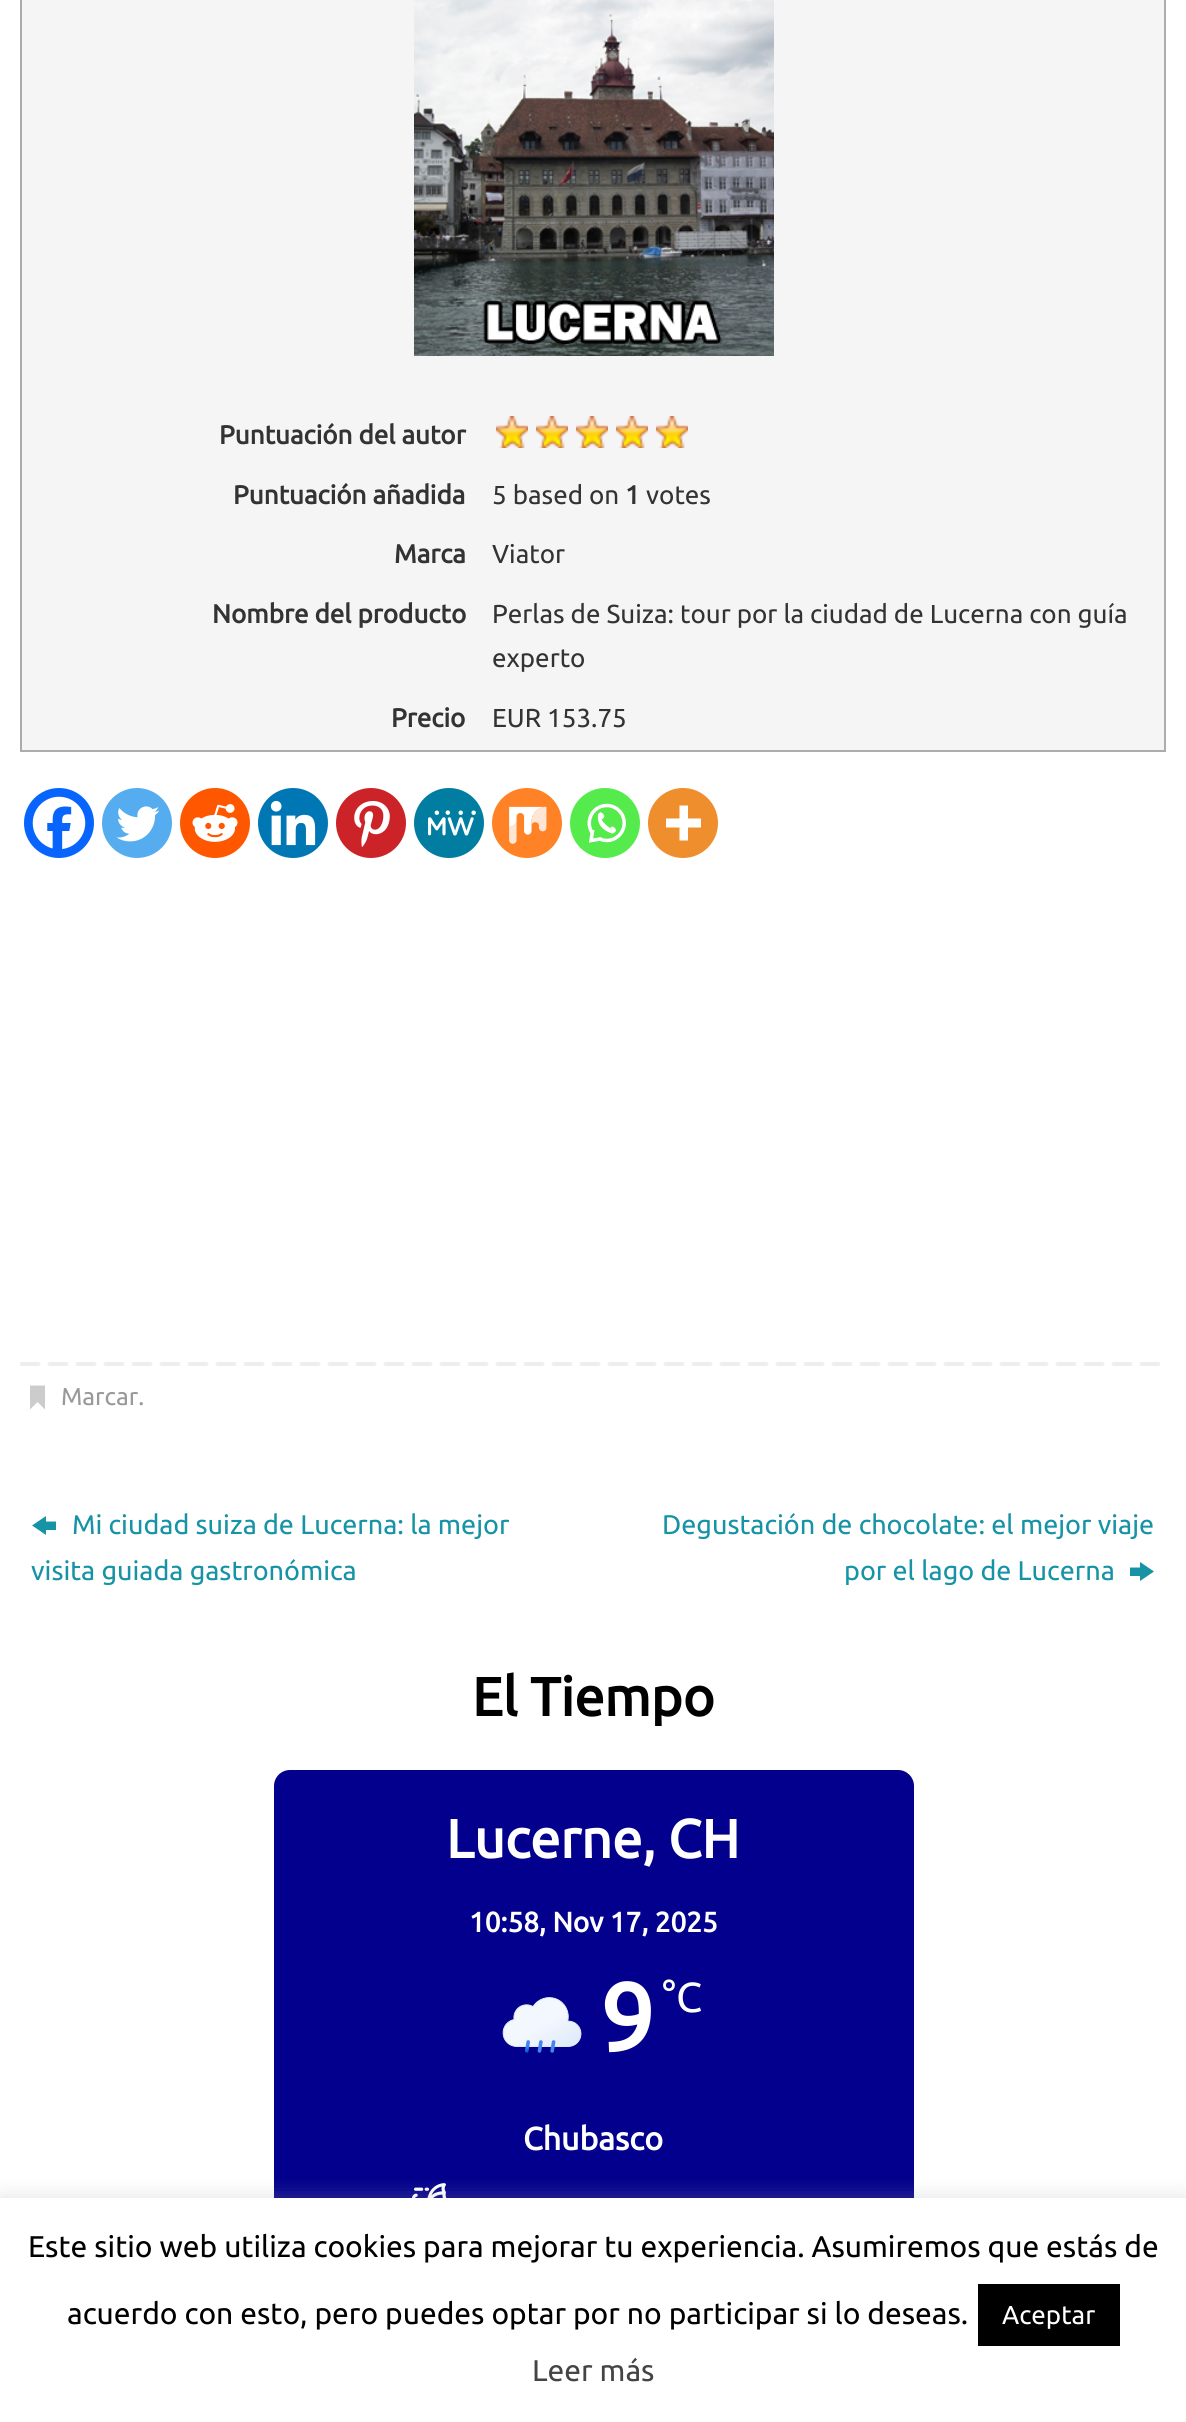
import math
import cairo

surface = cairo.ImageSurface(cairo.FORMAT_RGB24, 1186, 2422)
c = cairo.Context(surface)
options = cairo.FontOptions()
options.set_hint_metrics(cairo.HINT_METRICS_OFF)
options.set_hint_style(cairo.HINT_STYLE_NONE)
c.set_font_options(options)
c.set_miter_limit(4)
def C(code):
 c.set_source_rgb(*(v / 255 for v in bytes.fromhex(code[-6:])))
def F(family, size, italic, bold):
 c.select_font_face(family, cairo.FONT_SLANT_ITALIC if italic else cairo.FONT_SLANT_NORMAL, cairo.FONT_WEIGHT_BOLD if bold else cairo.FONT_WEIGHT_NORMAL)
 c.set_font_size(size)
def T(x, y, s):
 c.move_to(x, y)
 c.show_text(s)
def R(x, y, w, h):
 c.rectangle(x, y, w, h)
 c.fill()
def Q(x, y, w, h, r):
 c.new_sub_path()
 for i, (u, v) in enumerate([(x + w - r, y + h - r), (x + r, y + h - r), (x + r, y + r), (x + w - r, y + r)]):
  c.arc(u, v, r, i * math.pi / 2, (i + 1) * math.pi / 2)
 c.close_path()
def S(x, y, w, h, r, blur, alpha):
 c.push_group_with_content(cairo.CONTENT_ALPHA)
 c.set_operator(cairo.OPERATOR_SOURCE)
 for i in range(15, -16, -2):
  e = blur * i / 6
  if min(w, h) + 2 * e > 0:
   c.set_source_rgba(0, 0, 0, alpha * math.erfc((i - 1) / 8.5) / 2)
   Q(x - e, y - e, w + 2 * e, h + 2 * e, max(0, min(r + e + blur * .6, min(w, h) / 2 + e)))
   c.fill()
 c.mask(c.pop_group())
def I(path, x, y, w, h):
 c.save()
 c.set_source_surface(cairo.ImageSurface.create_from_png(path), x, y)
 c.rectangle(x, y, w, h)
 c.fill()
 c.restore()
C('ffffff')
c.paint()
C('f5f5f5')
c.rectangle(21,-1,1144,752)
c.fill_preserve()
C('acacac')
c.stroke()
I('1.png',414,0,360,356)
F('Ubuntu',26,0,1)
C('333333')
T(219,444,'Puntuación del autor')
I('2.png',496,416,32,32)
I('2.png',536,416,32,32)
I('2.png',576,416,32,32)
I('2.png',616,416,32,32)
I('2.png',656,416,32,32)
T(233,504,'Puntuación añadida')
F('Ubuntu',26,0,0)
T(492,504,'5 based on')
F('Ubuntu',26,0,1)
T(625,504,'1')
F('Ubuntu',26,0,0)
T(646,504,'votes')
F('Ubuntu',26,0,1)
T(394,563,'Marca')
F('Ubuntu',26,0,0)
T(492,563,'Viator')
F('Ubuntu',26,0,1)
T(212,623,'Nombre del producto')
F('Ubuntu',26,0,0)
T(492,623,'Perlas de Suiza: tour por la ciudad de Lucerna con guía')
T(492,667,'experto')
F('Ubuntu',26,0,1)
T(391,727,'Precio')
F('Ubuntu',26,0,0)
T(492,727,'EUR 153.75')
C('0765fe')
c.new_path()
c.arc(59,823,35,0,2 * math.pi)
c.fill()
I('3.png',32,796,54,53)
C('55acee')
c.arc(137,823,35,0,2 * math.pi)
c.fill()
I('4.png',116,806,44,36)
C('ff5700')
c.arc(215,823,35,0,2 * math.pi)
c.fill()
I('5.png',192,804,46,38)
C('0077b5')
c.arc(293,823,35,0,2 * math.pi)
c.fill()
I('6.png',270,800,46,46)
C('cc2329')
c.arc(371,823,35,0,2 * math.pi)
c.fill()
I('7.png',354,801,36,46)
C('007da1')
c.arc(449,823,35,0,2 * math.pi)
c.fill()
I('8.png',428,810,48,26)
C('ff8226')
c.arc(527,823,35,0,2 * math.pi)
c.fill()
I('9.png',509,806,38,38)
C('55eb4c')
c.arc(605,823,35,0,2 * math.pi)
c.fill()
I('10.png',587,803,39,40)
C('ee8e2d')
c.arc(683,823,35,0,2 * math.pi)
c.fill()
C('ffffff')
c.set_fill_rule(cairo.FILL_RULE_EVEN_ODD)
c.new_path()
c.move_to(688,818.5)
c.line_to(688,805.5)
c.line_to(679.5,805.5)
c.line_to(679.5,818.5)
c.line_to(666,818.5)
c.line_to(666,827.5)
c.line_to(679.5,827.5)
c.line_to(679.5,840.5)
c.line_to(688,840.5)
c.line_to(688,827.5)
c.line_to(701,827.5)
c.line_to(701,818.5)
c.close_path()
c.fill()
I('11.png',20,1362,1140,4)
C('cccccc')
c.set_fill_rule(cairo.FILL_RULE_WINDING)
c.new_path()
c.move_to(30,1407.5)
c.line_to(30,1385.5)
c.line_to(45,1385.5)
c.line_to(45,1409.5)
c.line_to(37.5,1402)
c.line_to(30,1409.5)
c.close_path()
c.fill()
F('Ubuntu',24.5,0,0)
C('999999')
T(61,1405,'Marcar.')
C('1693a5')
c.new_path()
c.move_to(32,1525.5)
c.line_to(46,1516)
c.line_to(46,1521.5)
c.line_to(56,1521.5)
c.line_to(56,1530)
c.line_to(46,1530)
c.line_to(46,1535)
c.close_path()
c.fill()
F('Ubuntu',27,0,0)
T(72,1534,'Mi ciudad suiza de Lucerna: la mejor')
T(31,1580,'visita guiada gastronómica')
T(662,1534,'Degustación de chocolate: el mejor viaje')
T(844,1580,'por el lago de Lucerna')
c.new_path()
c.move_to(1130,1576)
c.line_to(1130,1567.5)
c.line_to(1140,1567.5)
c.line_to(1140,1562)
c.line_to(1154,1571.5)
c.line_to(1140,1581)
c.line_to(1140,1576)
c.close_path()
c.fill()
F('Ubuntu',54,0,1)
C('000000')
T(472,1716,'El Tiempo')
C('02008c')
Q(274,1770,640,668,16)
c.fill()
C('ffffff')
T(446,1858,'Lucerne, CH')
F('Ubuntu',28,0,1)
T(469,1932,'10:58, Nov 17, 2025')
I('12.png',502,1997,80,56)
F('Ubuntu',96,0,1)
T(600,2052,'9')
F('Ubuntu',42,0,0)
T(662,2012,'°C')
F('Ubuntu',32,0,1)
T(523,2150,'Chubasco')
I('13.png',412,2183,35,15)
C('acabab')
S(0,2196,1186,224,0,10,.3)
C('ffffff')
R(0,2198,1186,224)
F('Ubuntu',30,0,0)
C('000000')
T(28,2257,'Este sitio web utiliza cookies para mejorar tu experiencia. Asumiremos que estás de')
T(67,2324,'acuerdo con esto, pero puedes optar por no participar si lo deseas.')
R(978,2284,142,62)
F('Ubuntu',26,0,0)
C('ffffff')
T(1002,2324,'Aceptar')
F('Ubuntu',30,0,0)
C('444444')
T(532,2381,'Leer más')
surface.write_to_png('o.png')
